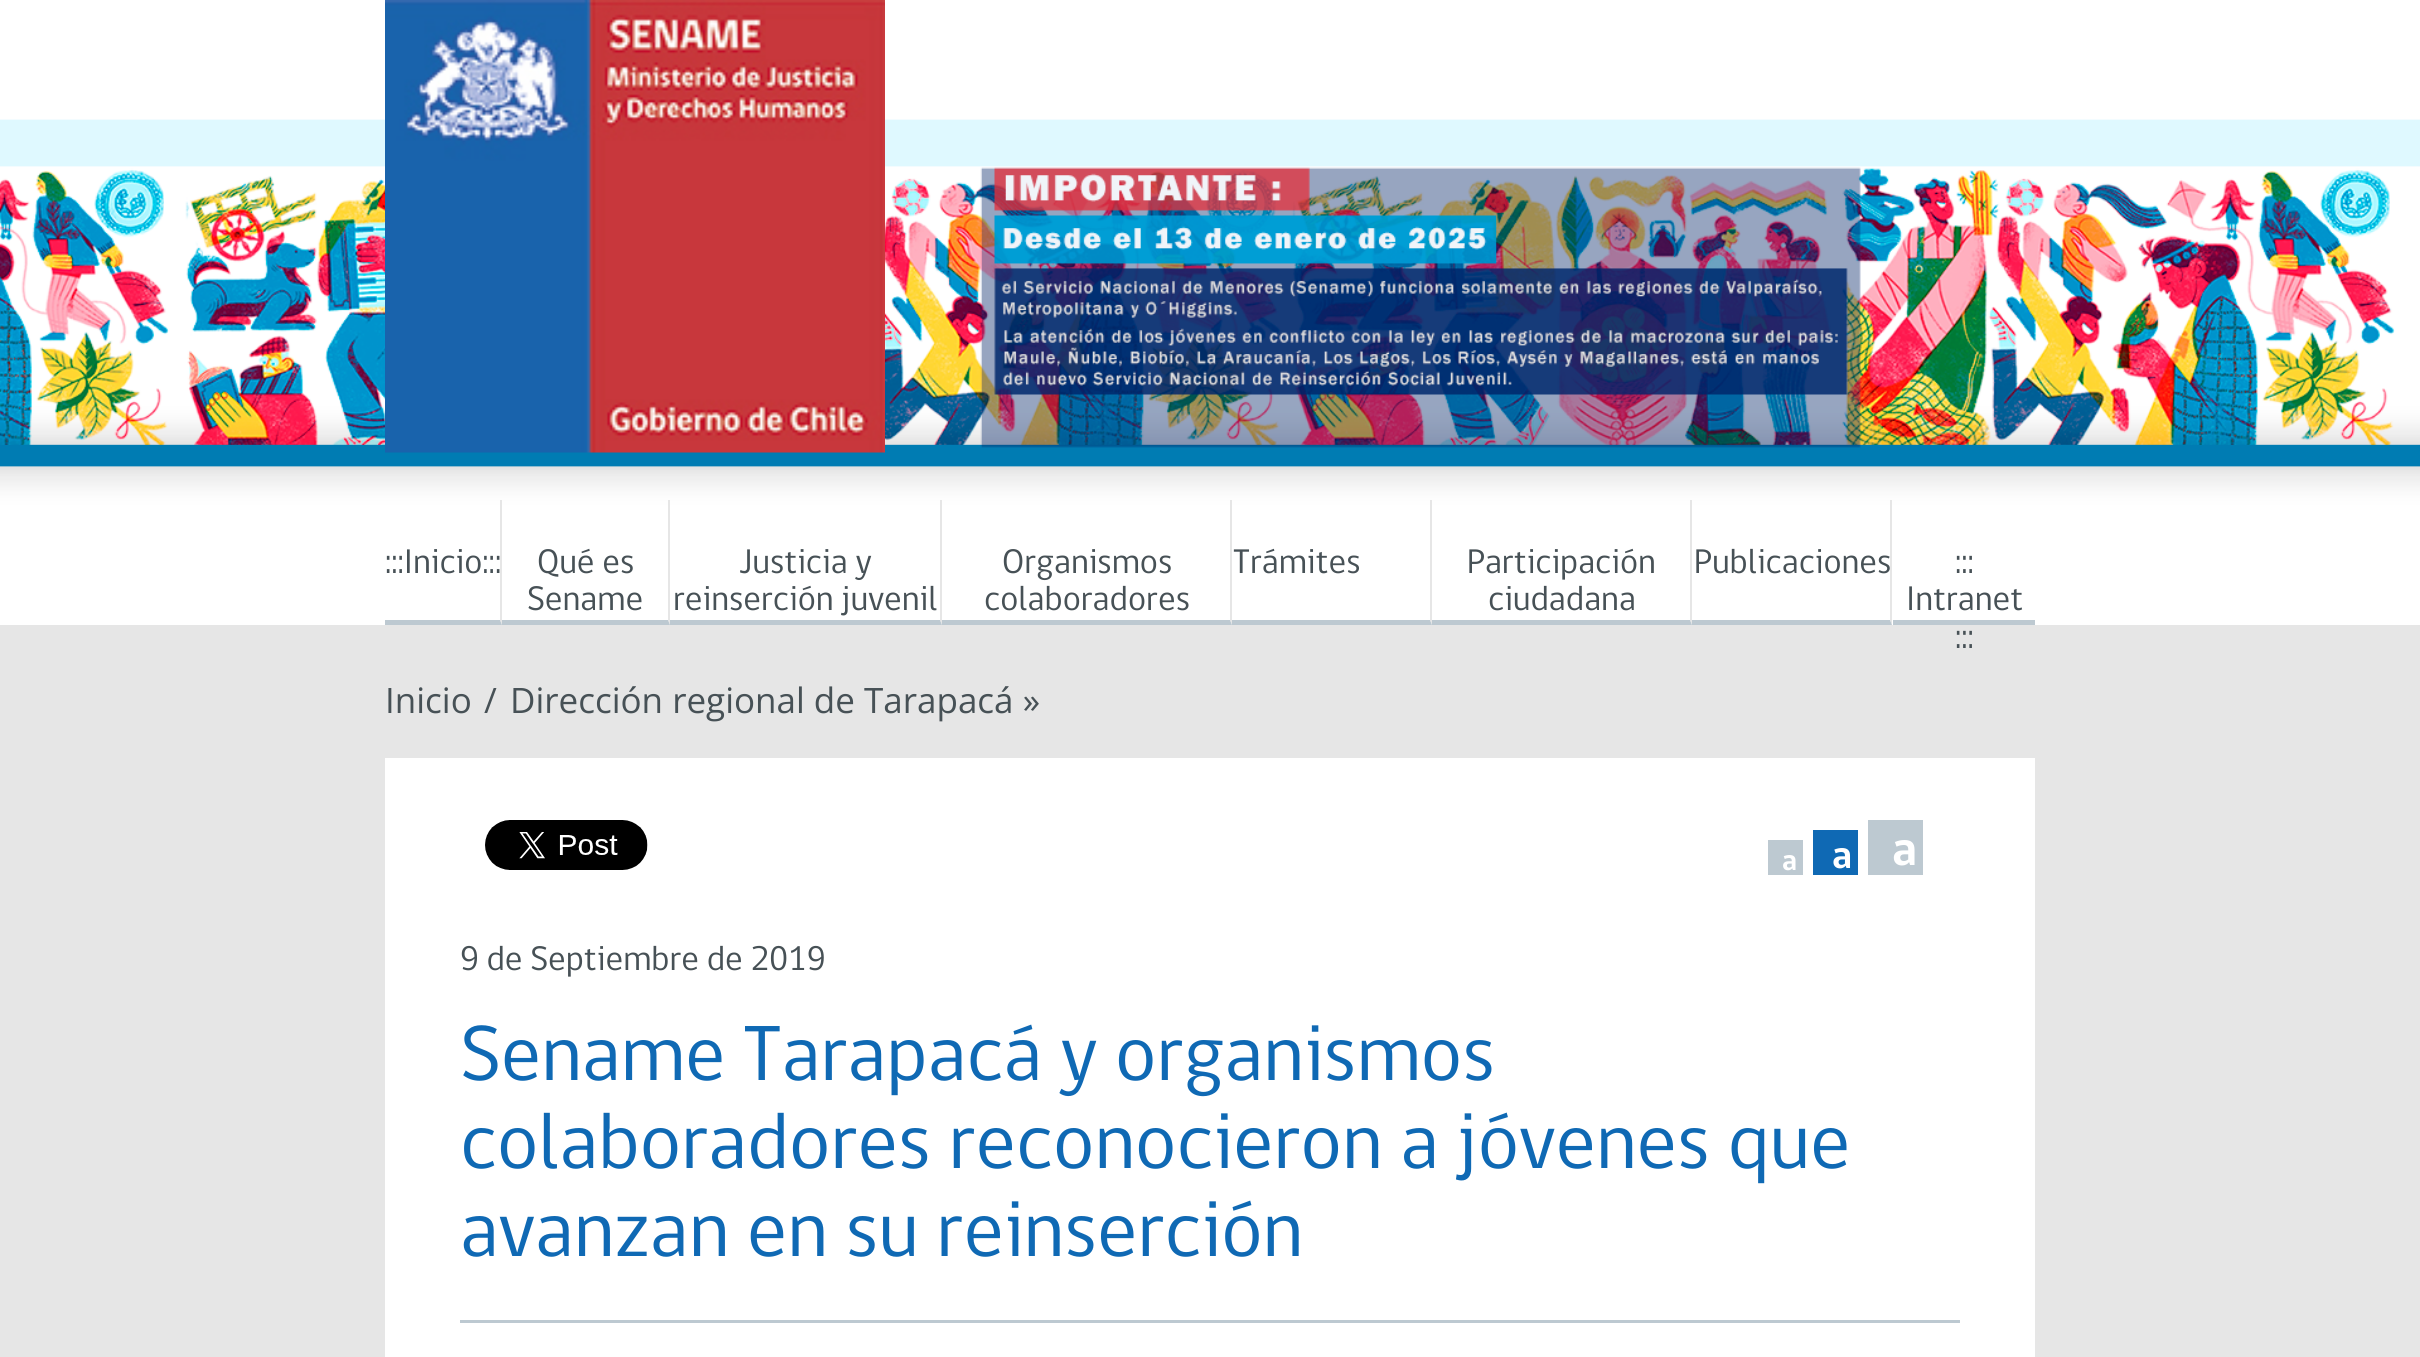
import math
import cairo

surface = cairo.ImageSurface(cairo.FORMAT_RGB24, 2420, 1357)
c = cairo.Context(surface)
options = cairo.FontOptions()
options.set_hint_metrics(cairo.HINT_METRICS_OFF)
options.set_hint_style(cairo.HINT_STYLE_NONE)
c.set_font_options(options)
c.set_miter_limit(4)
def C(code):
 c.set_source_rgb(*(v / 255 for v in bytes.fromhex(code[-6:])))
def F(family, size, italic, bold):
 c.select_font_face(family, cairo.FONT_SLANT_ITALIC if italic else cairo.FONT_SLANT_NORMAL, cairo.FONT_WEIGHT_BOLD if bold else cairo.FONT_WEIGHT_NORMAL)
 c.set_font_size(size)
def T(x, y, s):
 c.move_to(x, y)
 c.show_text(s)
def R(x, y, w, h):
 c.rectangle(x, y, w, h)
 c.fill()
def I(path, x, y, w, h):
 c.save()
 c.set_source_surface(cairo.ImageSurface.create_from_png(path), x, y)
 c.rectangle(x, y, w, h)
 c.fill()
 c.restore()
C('e6e6e6')
c.paint()
I('1.png',0,0,2420,625)
I('2.png',385,0,500,453)
C('e6e6e6')
c.new_path()
c.move_to(502,500)
c.line_to(502,625)
c.line_to(500,620)
c.line_to(500,500)
c.close_path()
c.fill()
C('bdc9d1')
c.new_path()
c.move_to(502,625)
c.line_to(385,625)
c.line_to(385,620)
c.line_to(500,620)
c.close_path()
c.fill()
F('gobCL',35,0,0)
C('475156')
T(385,573,':::Inicio:::')
C('e6e6e6')
c.new_path()
c.move_to(670,500)
c.line_to(670,625)
c.line_to(668,620)
c.line_to(668,500)
c.close_path()
c.fill()
C('bdc9d1')
c.new_path()
c.move_to(670,625)
c.line_to(502,625)
c.line_to(502,620)
c.line_to(668,620)
c.close_path()
c.fill()
C('475156')
T(537,573,'Qué es')
T(527,610,'Sename')
C('e6e6e6')
c.new_path()
c.move_to(942,500)
c.line_to(942,625)
c.line_to(940,620)
c.line_to(940,500)
c.close_path()
c.fill()
C('bdc9d1')
c.new_path()
c.move_to(942,625)
c.line_to(670,625)
c.line_to(670,620)
c.line_to(940,620)
c.close_path()
c.fill()
C('475156')
T(739,573,'Justicia y')
T(673,610,'reinserción juvenil')
C('e6e6e6')
c.new_path()
c.move_to(1232,500)
c.line_to(1232,625)
c.line_to(1230,620)
c.line_to(1230,500)
c.close_path()
c.fill()
C('bdc9d1')
c.new_path()
c.move_to(1232,625)
c.line_to(942,625)
c.line_to(942,620)
c.line_to(1230,620)
c.close_path()
c.fill()
C('475156')
T(1002,573,'Organismos')
T(984,610,'colaboradores')
C('e6e6e6')
c.new_path()
c.move_to(1432,500)
c.line_to(1432,625)
c.line_to(1430,620)
c.line_to(1430,500)
c.close_path()
c.fill()
C('bdc9d1')
c.new_path()
c.move_to(1432,625)
c.line_to(1232,625)
c.line_to(1232,620)
c.line_to(1430,620)
c.close_path()
c.fill()
C('475156')
T(1233,573,'Trámites')
C('e6e6e6')
c.new_path()
c.move_to(1692,500)
c.line_to(1692,625)
c.line_to(1690,620)
c.line_to(1690,500)
c.close_path()
c.fill()
C('bdc9d1')
c.new_path()
c.move_to(1692,625)
c.line_to(1432,625)
c.line_to(1432,620)
c.line_to(1690,620)
c.close_path()
c.fill()
C('475156')
T(1467,573,'Participación')
T(1488,610,'ciudadana')
C('e6e6e6')
c.new_path()
c.move_to(1892,500)
c.line_to(1892,625)
c.line_to(1890,620)
c.line_to(1890,500)
c.close_path()
c.fill()
C('bdc9d1')
c.new_path()
c.move_to(1892,625)
c.line_to(1692,625)
c.line_to(1692,620)
c.line_to(1890,620)
c.close_path()
c.fill()
C('475156')
T(1694,573,'Publicaciones')
C('bdc9d1')
R(1893,620,142,5)
C('475156')
T(1955,573,':::')
T(1906,610,'Intranet')
T(1955,648,':::')
F('Open Sans',35,0,0)
T(385,713,'Inicio')
T(484,713,'/')
T(510,713,'Dirección regional de Tarapacá »')
C('ffffff')
R(385,758,1650,599)
I('3.png',485,820,163,50)
C('bdc9d1')
R(1768,840,35,35)
F('gobCL',30,0,1)
C('ffffff')
T(1782,870,'a')
C('0f69b4')
R(1813,830,45,45)
F('gobCL',40,0,1)
C('ffffff')
T(1832,868,'a')
C('bdc9d1')
R(1868,820,55,55)
F('gobCL',50,0,1)
C('ffffff')
T(1892,865,'a')
F('gobCL',35,0,0)
C('475156')
T(460,970,'9 de Septiembre de 2019')
C('bdc9d1')
R(460,1320,1500,3)
F('gobCL',80,0,0)
C('0f69b4')
T(460,1080,'Sename Tarapacá y organismos')
T(460,1168,'colaboradores reconocieron a jóvenes que')
T(460,1256,'avanzan en su reinserción')
surface.write_to_png('o.png')
